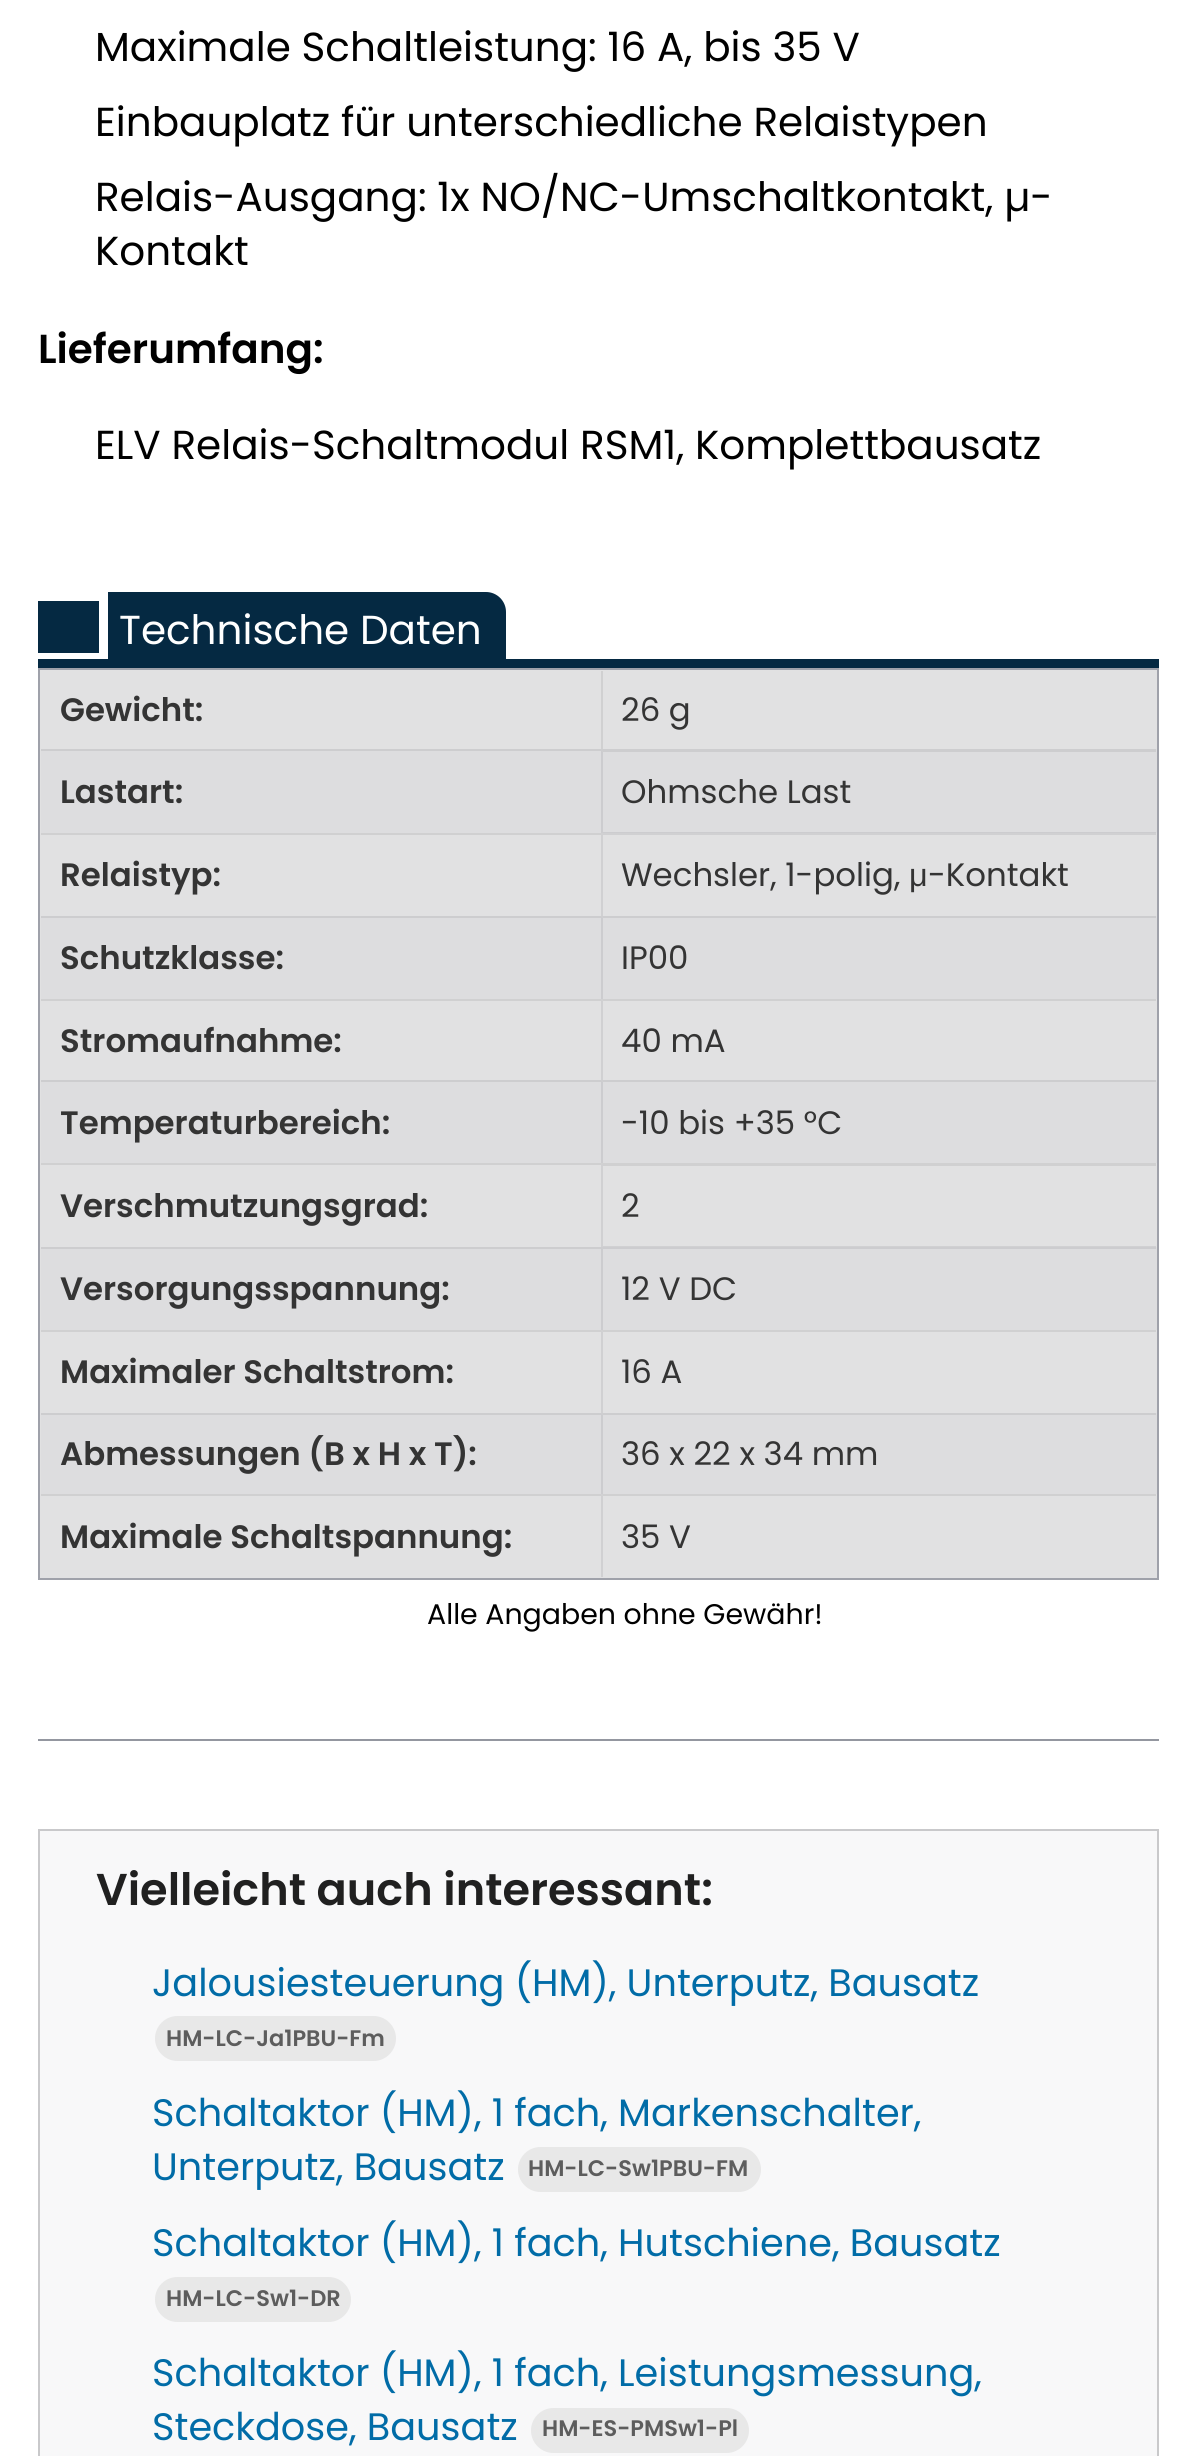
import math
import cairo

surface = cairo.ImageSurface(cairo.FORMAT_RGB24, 1196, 2456)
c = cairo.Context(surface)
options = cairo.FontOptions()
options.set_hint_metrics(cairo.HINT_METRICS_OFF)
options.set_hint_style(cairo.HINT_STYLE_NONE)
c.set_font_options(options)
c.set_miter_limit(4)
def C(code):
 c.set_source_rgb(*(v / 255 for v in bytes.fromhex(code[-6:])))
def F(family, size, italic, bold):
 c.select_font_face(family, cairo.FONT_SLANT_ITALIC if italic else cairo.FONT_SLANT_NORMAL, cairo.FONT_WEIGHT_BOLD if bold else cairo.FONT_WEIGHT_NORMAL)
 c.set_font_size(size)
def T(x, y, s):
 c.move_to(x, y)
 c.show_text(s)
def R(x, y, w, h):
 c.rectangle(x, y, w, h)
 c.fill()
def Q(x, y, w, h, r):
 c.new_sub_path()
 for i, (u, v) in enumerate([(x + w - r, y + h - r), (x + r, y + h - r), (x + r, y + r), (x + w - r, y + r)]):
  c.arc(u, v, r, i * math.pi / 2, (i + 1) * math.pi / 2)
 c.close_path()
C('ffffff')
c.paint()
F('Poppins',40.5,0,0)
C('000000')
T(95,61,'Maximale Schaltleistung: 16 A, bis 35 V')
T(95,136,'Einbauplatz für unterschiedliche Relaistypen')
T(95,211,'Relais-Ausgang: 1x NO/NC-Umschaltkontakt, µ-')
T(95,265,'Kontakt')
F('Poppins SemiBold',40.5,0,0)
T(38,363,'Lieferumfang:')
F('Poppins',40.5,0,0)
T(95,459,'ELV Relais-Schaltmodul RSM1, Komplettbausatz')
C('052942')
R(38,659,1121,9)
c.new_path()
c.move_to(108,592)
c.line_to(486,592)
c.curve_to(497,592,506,601,506,612)
c.line_to(506,659)
c.line_to(108,659)
c.close_path()
c.fill()
C('ffffff')
T(119,644,'Technische Daten')
C('052942')
R(38,601,61,52)
C('e1e1e2')
c.rectangle(39,669,1119,910)
c.fill_preserve()
C('9fa1aa')
c.stroke()
F('Poppins SemiBold',32.4,0,0)
C('343434')
T(60,721,'Gewicht:')
C('d0d0d1')
R(601,671,2,78)
F('Poppins',32.4,0,0)
C('343434')
T(621,721,'26 g')
C('dddddf')
R(41,749,1116,84)
C('cdcdcf')
R(41,749,560,2)
F('Poppins SemiBold',32.4,0,0)
C('343434')
T(60,803,'Lastart:')
C('cdcdcf')
c.new_path()
c.move_to(601,749)
c.line_to(1156,749)
c.line_to(1156,752)
c.line_to(603,752)
c.close_path()
c.fill()
c.set_source_rgba(0.22,0.227,0.235,0.1)
c.new_path()
c.move_to(601,832)
c.line_to(601,749)
c.line_to(603,752)
c.line_to(603,832)
c.close_path()
c.fill()
F('Poppins',32.4,0,0)
C('343434')
T(621,803,'Ohmsche Last')
C('d0d0d1')
R(41,833,560,2)
F('Poppins SemiBold',32.4,0,0)
C('343434')
T(60,886,'Relaistyp:')
c.set_source_rgba(0.22,0.227,0.235,0.1)
c.new_path()
c.move_to(601,832)
c.line_to(1156,832)
c.line_to(1156,835)
c.line_to(603,835)
c.close_path()
c.fill()
c.new_path()
c.move_to(601,916)
c.line_to(601,832)
c.line_to(603,835)
c.line_to(603,916)
c.close_path()
c.fill()
F('Poppins',32.4,0,0)
C('343434')
T(621,886,'Wechsler, 1-polig,')
F('Liberation Sans',32.4,0,0)
T(909,886,'μ')
F('Poppins',32.4,0,0)
T(928,886,'-Kontakt')
C('dddddf')
R(41,916,1116,83)
C('cdcdcf')
R(41,916,560,2)
F('Poppins SemiBold',32.4,0,0)
C('343434')
T(60,969,'Schutzklasse:')
C('cdcdcf')
c.new_path()
c.move_to(601,916)
c.line_to(1156,916)
c.line_to(1156,918)
c.line_to(603,918)
c.close_path()
c.fill()
c.set_source_rgba(0.22,0.227,0.235,0.1)
c.new_path()
c.move_to(601,999)
c.line_to(601,916)
c.line_to(603,918)
c.line_to(603,999)
c.close_path()
c.fill()
F('Poppins',32.4,0,0)
C('343434')
T(621,969,'IP00')
C('d0d0d1')
R(41,999,560,2)
F('Poppins SemiBold',32.4,0,0)
C('343434')
T(60,1052,'Stromaufnahme:')
C('d0d0d1')
c.new_path()
c.move_to(601,999)
c.line_to(1156,999)
c.line_to(1156,1001)
c.line_to(603,1001)
c.close_path()
c.fill()
c.set_source_rgba(0.22,0.227,0.235,0.1)
c.new_path()
c.move_to(601,1080)
c.line_to(601,999)
c.line_to(603,1001)
c.line_to(603,1080)
c.close_path()
c.fill()
F('Poppins',32.4,0,0)
C('343434')
T(621,1052,'40 mA')
C('dddddf')
R(41,1080,1116,83)
C('cdcdcf')
R(41,1080,560,2)
F('Poppins SemiBold',32.4,0,0)
C('343434')
T(60,1134,'Temperaturbereich:')
C('cdcdcf')
c.new_path()
c.move_to(601,1080)
c.line_to(1156,1080)
c.line_to(1156,1082)
c.line_to(603,1082)
c.close_path()
c.fill()
c.set_source_rgba(0.22,0.227,0.235,0.1)
c.new_path()
c.move_to(601,1163)
c.line_to(601,1080)
c.line_to(603,1082)
c.line_to(603,1163)
c.close_path()
c.fill()
F('Poppins',32.4,0,0)
C('343434')
T(621,1134,'-10 bis +35 °C')
C('d0d0d1')
R(41,1163,560,2)
F('Poppins SemiBold',32.4,0,0)
C('343434')
T(60,1217,'Verschmutzungsgrad:')
C('d0d0d1')
c.new_path()
c.move_to(601,1163)
c.line_to(1156,1163)
c.line_to(1156,1166)
c.line_to(603,1166)
c.close_path()
c.fill()
c.set_source_rgba(0.22,0.227,0.235,0.1)
c.new_path()
c.move_to(601,1246)
c.line_to(601,1163)
c.line_to(603,1166)
c.line_to(603,1246)
c.close_path()
c.fill()
F('Poppins',32.4,0,0)
C('343434')
T(621,1217,'2')
C('dddddf')
R(41,1247,1116,83)
C('cdcdcf')
R(41,1247,560,2)
F('Poppins SemiBold',32.4,0,0)
C('343434')
T(60,1300,'Versorgungsspannung:')
c.set_source_rgba(0.22,0.227,0.235,0.1)
c.new_path()
c.move_to(601,1246)
c.line_to(1156,1246)
c.line_to(1156,1249)
c.line_to(603,1249)
c.close_path()
c.fill()
c.new_path()
c.move_to(601,1330)
c.line_to(601,1246)
c.line_to(603,1249)
c.line_to(603,1330)
c.close_path()
c.fill()
F('Poppins',32.4,0,0)
C('343434')
T(621,1300,'12 V DC')
C('d0d0d1')
R(41,1330,560,2)
F('Poppins SemiBold',32.4,0,0)
C('343434')
T(60,1383,'Maximaler Schaltstrom:')
C('d0d0d1')
c.new_path()
c.move_to(601,1330)
c.line_to(1156,1330)
c.line_to(1156,1332)
c.line_to(603,1332)
c.close_path()
c.fill()
c.set_source_rgba(0.22,0.227,0.235,0.1)
c.new_path()
c.move_to(601,1413)
c.line_to(601,1330)
c.line_to(603,1332)
c.line_to(603,1413)
c.close_path()
c.fill()
F('Poppins',32.4,0,0)
C('343434')
T(621,1383,'16 A')
C('dddddf')
R(41,1413,1116,81)
C('cdcdcf')
R(41,1413,560,2)
F('Poppins SemiBold',32.4,0,0)
C('343434')
T(60,1465,'Abmessungen (B x H x T):')
C('cdcdcf')
c.new_path()
c.move_to(601,1413)
c.line_to(1156,1413)
c.line_to(1156,1415)
c.line_to(603,1415)
c.close_path()
c.fill()
c.set_source_rgba(0.22,0.227,0.235,0.1)
c.new_path()
c.move_to(601,1494)
c.line_to(601,1413)
c.line_to(603,1415)
c.line_to(603,1494)
c.close_path()
c.fill()
F('Poppins',32.4,0,0)
C('343434')
T(621,1465,'36 x 22 x 34 mm')
C('d0d0d1')
R(41,1494,560,2)
F('Poppins SemiBold',32.4,0,0)
C('343434')
T(60,1548,'Maximale Schaltspannung:')
C('d0d0d1')
c.new_path()
c.move_to(601,1494)
c.line_to(1156,1494)
c.line_to(1156,1496)
c.line_to(603,1496)
c.close_path()
c.fill()
c.set_source_rgba(0.22,0.227,0.235,0.1)
c.new_path()
c.move_to(601,1577)
c.line_to(601,1494)
c.line_to(603,1496)
c.line_to(603,1577)
c.close_path()
c.fill()
F('Poppins',32.4,0,0)
C('343434')
T(621,1548,'35 V')
F('Poppins',28.4,0,0)
C('000000')
T(427,1624,'Alle Angaben ohne Gewähr!')
C('9497a0')
R(38,1739,1121,2)
C('f8f8f9')
c.rectangle(39,1830,1119,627)
c.fill_preserve()
C('c9c9cb')
c.stroke()
F('Poppins SemiBold',44.6,0,0)
C('202020')
T(96,1905,'Vielleicht auch interessant:')
F('Poppins',38.25,0,0)
C('016ca7')
T(152,1996,'Jalousiesteuerung (HM), Unterputz, Bausatz')
C('e8e8e8')
Q(155,2016,241,45,22.5)
c.fill()
F('Poppins SemiBold',22.5,0,0)
C('5d5d5d')
T(166,2046,'HM-LC-Ja1PBU-Fm')
F('Poppins',38.25,0,0)
C('016ca7')
T(152,2126,'Schaltaktor (HM), 1 fach, Markenschalter,')
T(152,2180,'Unterputz, Bausatz')
C('e8e8e8')
Q(518,2147,243,45,22.5)
c.fill()
F('Poppins SemiBold',22.5,0,0)
C('5d5d5d')
T(528,2176,'HM-LC-Sw1PBU-FM')
F('Poppins',38.25,0,0)
C('016ca7')
T(152,2256,'Schaltaktor (HM), 1 fach, Hutschiene, Bausatz')
C('e8e8e8')
Q(155,2277,196,45,22.5)
c.fill()
F('Poppins SemiBold',22.5,0,0)
C('5d5d5d')
T(166,2306,'HM-LC-Sw1-DR')
F('Poppins',38.25,0,0)
C('016ca7')
T(152,2386,'Schaltaktor (HM), 1 fach, Leistungsmessung,')
T(152,2440,'Steckdose, Bausatz')
C('e8e8e8')
Q(531,2408,218,45,22.5)
c.fill()
F('Poppins SemiBold',22.5,0,0)
C('5d5d5d')
T(542,2436,'HM-ES-PMSw1-Pl')
surface.write_to_png('o.png')
